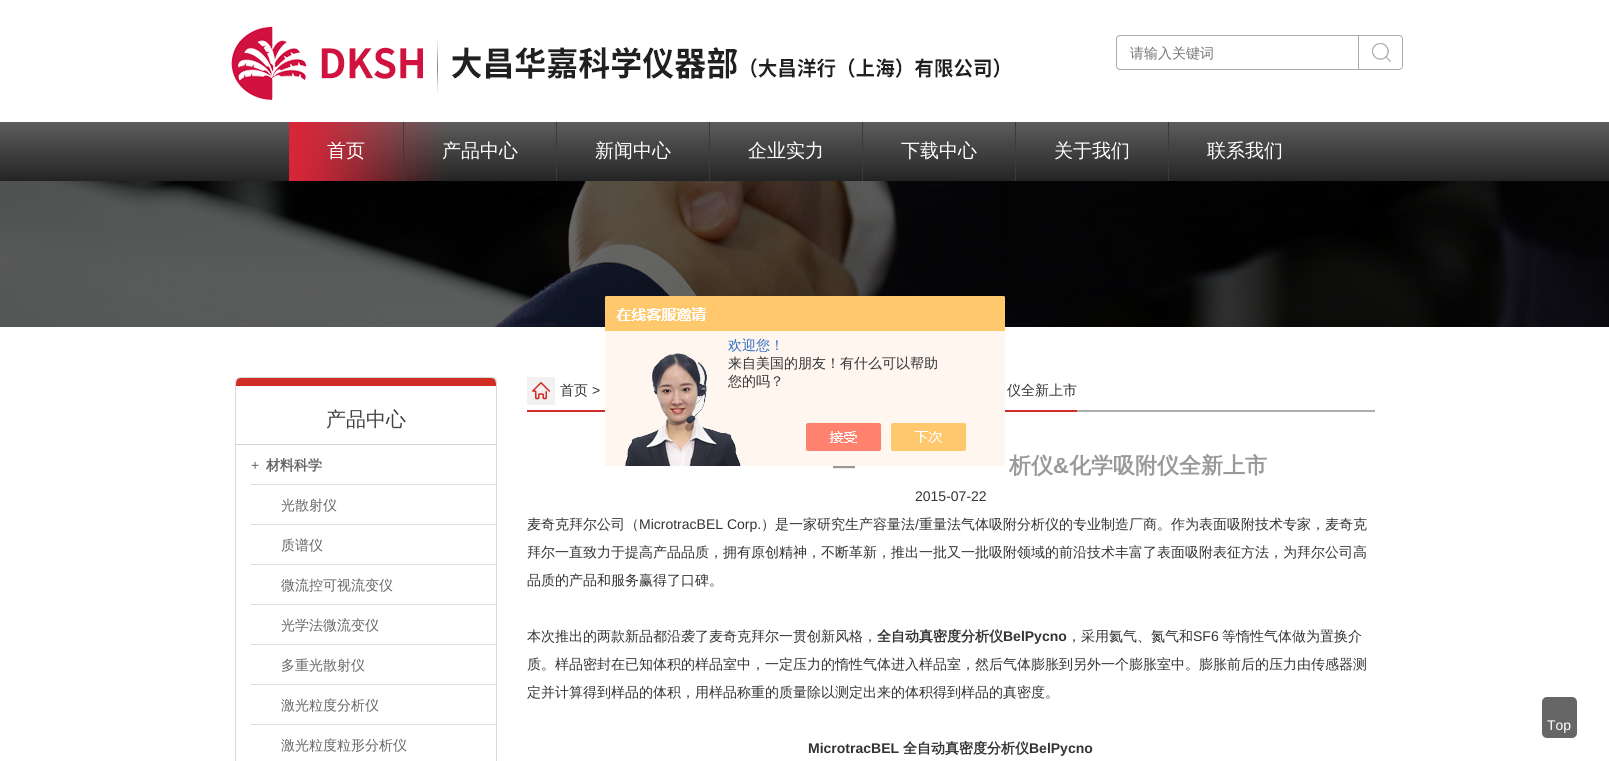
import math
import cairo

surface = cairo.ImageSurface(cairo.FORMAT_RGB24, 1609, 761)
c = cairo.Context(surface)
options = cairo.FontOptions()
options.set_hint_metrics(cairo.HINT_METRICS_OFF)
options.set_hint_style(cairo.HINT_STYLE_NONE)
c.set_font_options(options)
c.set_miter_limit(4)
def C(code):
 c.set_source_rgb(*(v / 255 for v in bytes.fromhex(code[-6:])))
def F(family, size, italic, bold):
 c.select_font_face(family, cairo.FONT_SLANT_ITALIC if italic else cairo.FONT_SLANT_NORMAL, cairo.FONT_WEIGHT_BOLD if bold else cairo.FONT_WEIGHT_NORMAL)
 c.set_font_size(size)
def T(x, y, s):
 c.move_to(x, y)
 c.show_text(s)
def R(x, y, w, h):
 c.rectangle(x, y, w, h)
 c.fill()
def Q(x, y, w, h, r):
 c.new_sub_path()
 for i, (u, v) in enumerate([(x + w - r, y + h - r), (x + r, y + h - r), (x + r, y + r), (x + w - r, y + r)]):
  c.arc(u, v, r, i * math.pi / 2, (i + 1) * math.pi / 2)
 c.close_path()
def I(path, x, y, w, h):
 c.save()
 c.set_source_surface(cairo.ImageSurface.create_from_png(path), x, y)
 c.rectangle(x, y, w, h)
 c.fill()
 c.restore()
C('ffffff')
c.paint()
I('1.png',231,26,768,74)
Q(1116.5,35.5,286,34,3.5)
C('aaaaaa')
c.set_line_width(1)
c.stroke()
R(1358,36,1,33)
F('WenQuanYi Zen Hei Medium',14,0,0)
C('757575')
T(1130,58,'请输入关键词')
I('2.png',1372,43,19,19)
gradient = cairo.LinearGradient(805,122,805,181)
gradient.add_color_stop_rgba(0,0.365,0.365,0.365,1)
gradient.add_color_stop_rgba(1,0.141,0.141,0.141,1)
c.set_source(gradient)
R(0,122,1609,59)
I('3.png',289,122,158,59)
F('WenQuanYi Zen Hei Medium',19,0,0)
C('ffffff')
T(327,157,'首页')
C('3c3c3c')
R(403,122,1,59)
C('ffffff')
T(442,157,'产品中心')
C('3c3c3c')
R(556,122,1,59)
C('ffffff')
T(595,157,'新闻中心')
C('3c3c3c')
R(709,122,1,59)
C('ffffff')
T(748,157,'企业实力')
C('3c3c3c')
R(862,122,1,59)
C('ffffff')
T(901,157,'下载中心')
C('3c3c3c')
R(1015,122,1,59)
C('ffffff')
T(1054,157,'关于我们')
C('3c3c3c')
R(1168,122,1,59)
C('ffffff')
T(1207,157,'联系我们')
I('5.png',0,181,1609,146)
C('cf2e26')
R(527,410,550,2)
I('4.png',605,296,400,170)
F('WenQuanYi Zen Hei Medium',14,0,0)
C('2e6ec6')
T(728,350,'欢迎您！')
C('333333')
T(728,368,'来自美国的朋友！有什么可以帮助')
T(728,386,'您的吗？')
Q(235.5,377.5,261,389,4.5)
C('d9d9d9')
c.stroke()
C('cf2e26')
c.new_path()
c.move_to(241,378)
c.curve_to(236,378,236,382,236,386)
c.line_to(496,386)
c.curve_to(496,382,496,378,491,378)
c.close_path()
c.fill()
C('d3d3d3')
R(236,444,260,1)
F('WenQuanYi Zen Hei Medium',20,0,0)
C('414141')
T(326,426,'产品中心')
C('dddddd')
R(251,484,245,1)
F('Liberation Sans',14,0,0)
C('666666')
T(251,470,'+')
F('WenQuanYi Zen Hei',14,0,1)
T(266,470,'材料科学')
C('dddddd')
R(251,524,245,1)
F('WenQuanYi Zen Hei Medium',14,0,0)
C('666666')
T(281,510,'光散射仪')
C('dddddd')
R(251,564,245,1)
C('666666')
T(281,550,'质谱仪')
C('dddddd')
R(251,604,245,1)
C('666666')
T(281,590,'微流控可视流变仪')
C('dddddd')
R(251,644,245,1)
C('666666')
T(281,630,'光学法微流变仪')
C('dddddd')
R(251,684,245,1)
C('666666')
T(281,670,'多重光散射仪')
C('dddddd')
R(251,724,245,1)
C('666666')
T(281,710,'激光粒度分析仪')
T(281,750,'激光粒度粒形分析仪')
I('6.png',527,377,28,28)
C('333333')
T(560,395,'首页')
F('Liberation Sans',14,0,0)
T(592,395,'>')
F('WenQuanYi Zen Hei Medium',14,0,0)
T(1007,395,'仪全新上市')
C('adadad')
R(1077,410,298,2)
F('Liberation Sans',22,0,1)
C('999999')
T(833,473,'—')
F('WenQuanYi Zen Hei',22,0,1)
T(1009,473,'析仪')
F('Liberation Sans',22,0,1)
T(1053,473,'&')
F('WenQuanYi Zen Hei',22,0,1)
T(1069,473,'化学吸附仪全新上市')
F('Liberation Sans',14,0,0)
C('333333')
T(915,501,'2015-07-22')
F('WenQuanYi Zen Hei Medium',14,0,0)
T(527,529,'麦奇克拜尔公司（')
F('Liberation Sans',14,0,0)
T(639,529,'MicrotracBEL Corp.')
F('WenQuanYi Zen Hei Medium',14,0,0)
T(761,529,'）是一家研究生产容量法')
F('Liberation Sans',14,0,0)
T(915,529,'/')
F('WenQuanYi Zen Hei Medium',14,0,0)
T(919,529,'重量法气体吸附分析仪的专业制造厂商。作为表面吸附技术专家，麦奇克')
T(527,557,'拜尔一直致力于提高产品品质，拥有原创精神，不断革新，推出一批又一批吸附领域的前沿技术丰富了表面吸附表征方法，为拜尔公司高')
T(527,585,'品质的产品和服务赢得了口碑。')
T(527,641,'本次推出的两款新品都沿袭了麦奇克拜尔一贯创新风格，')
F('WenQuanYi Zen Hei',14,0,1)
T(877,641,'全自动真密度分析仪')
F('Liberation Sans',14,0,1)
T(1003,641,'BelPycno')
F('WenQuanYi Zen Hei Medium',14,0,0)
T(1067,641,'，采用氦气、氮气和')
F('Liberation Sans',14,0,0)
T(1193,641,'SF6')
F('WenQuanYi Zen Hei Medium',14,0,0)
T(1222,641,'等惰性气体做为置换介')
T(527,669,'质。样品密封在已知体积的样品室中，一定压力的惰性气体进入样品室，然后气体膨胀到另外一个膨胀室中。膨胀前后的压力由传感器测')
T(527,697,'定并计算得到样品的体积，用样品称重的质量除以测定出来的体积得到样品的真密度。')
F('Liberation Sans',14,0,1)
T(808,753,'MicrotracBEL')
F('WenQuanYi Zen Hei',14,0,1)
T(903,753,'全自动真密度分析仪')
F('Liberation Sans',14,0,1)
T(1029,753,'BelPycno')
C('666666')
Q(1542,697,35,41,5)
c.fill()
F('Liberation Sans',14,0,0)
C('ffffff')
T(1547,730,'Top')
surface.write_to_png('o.png')
